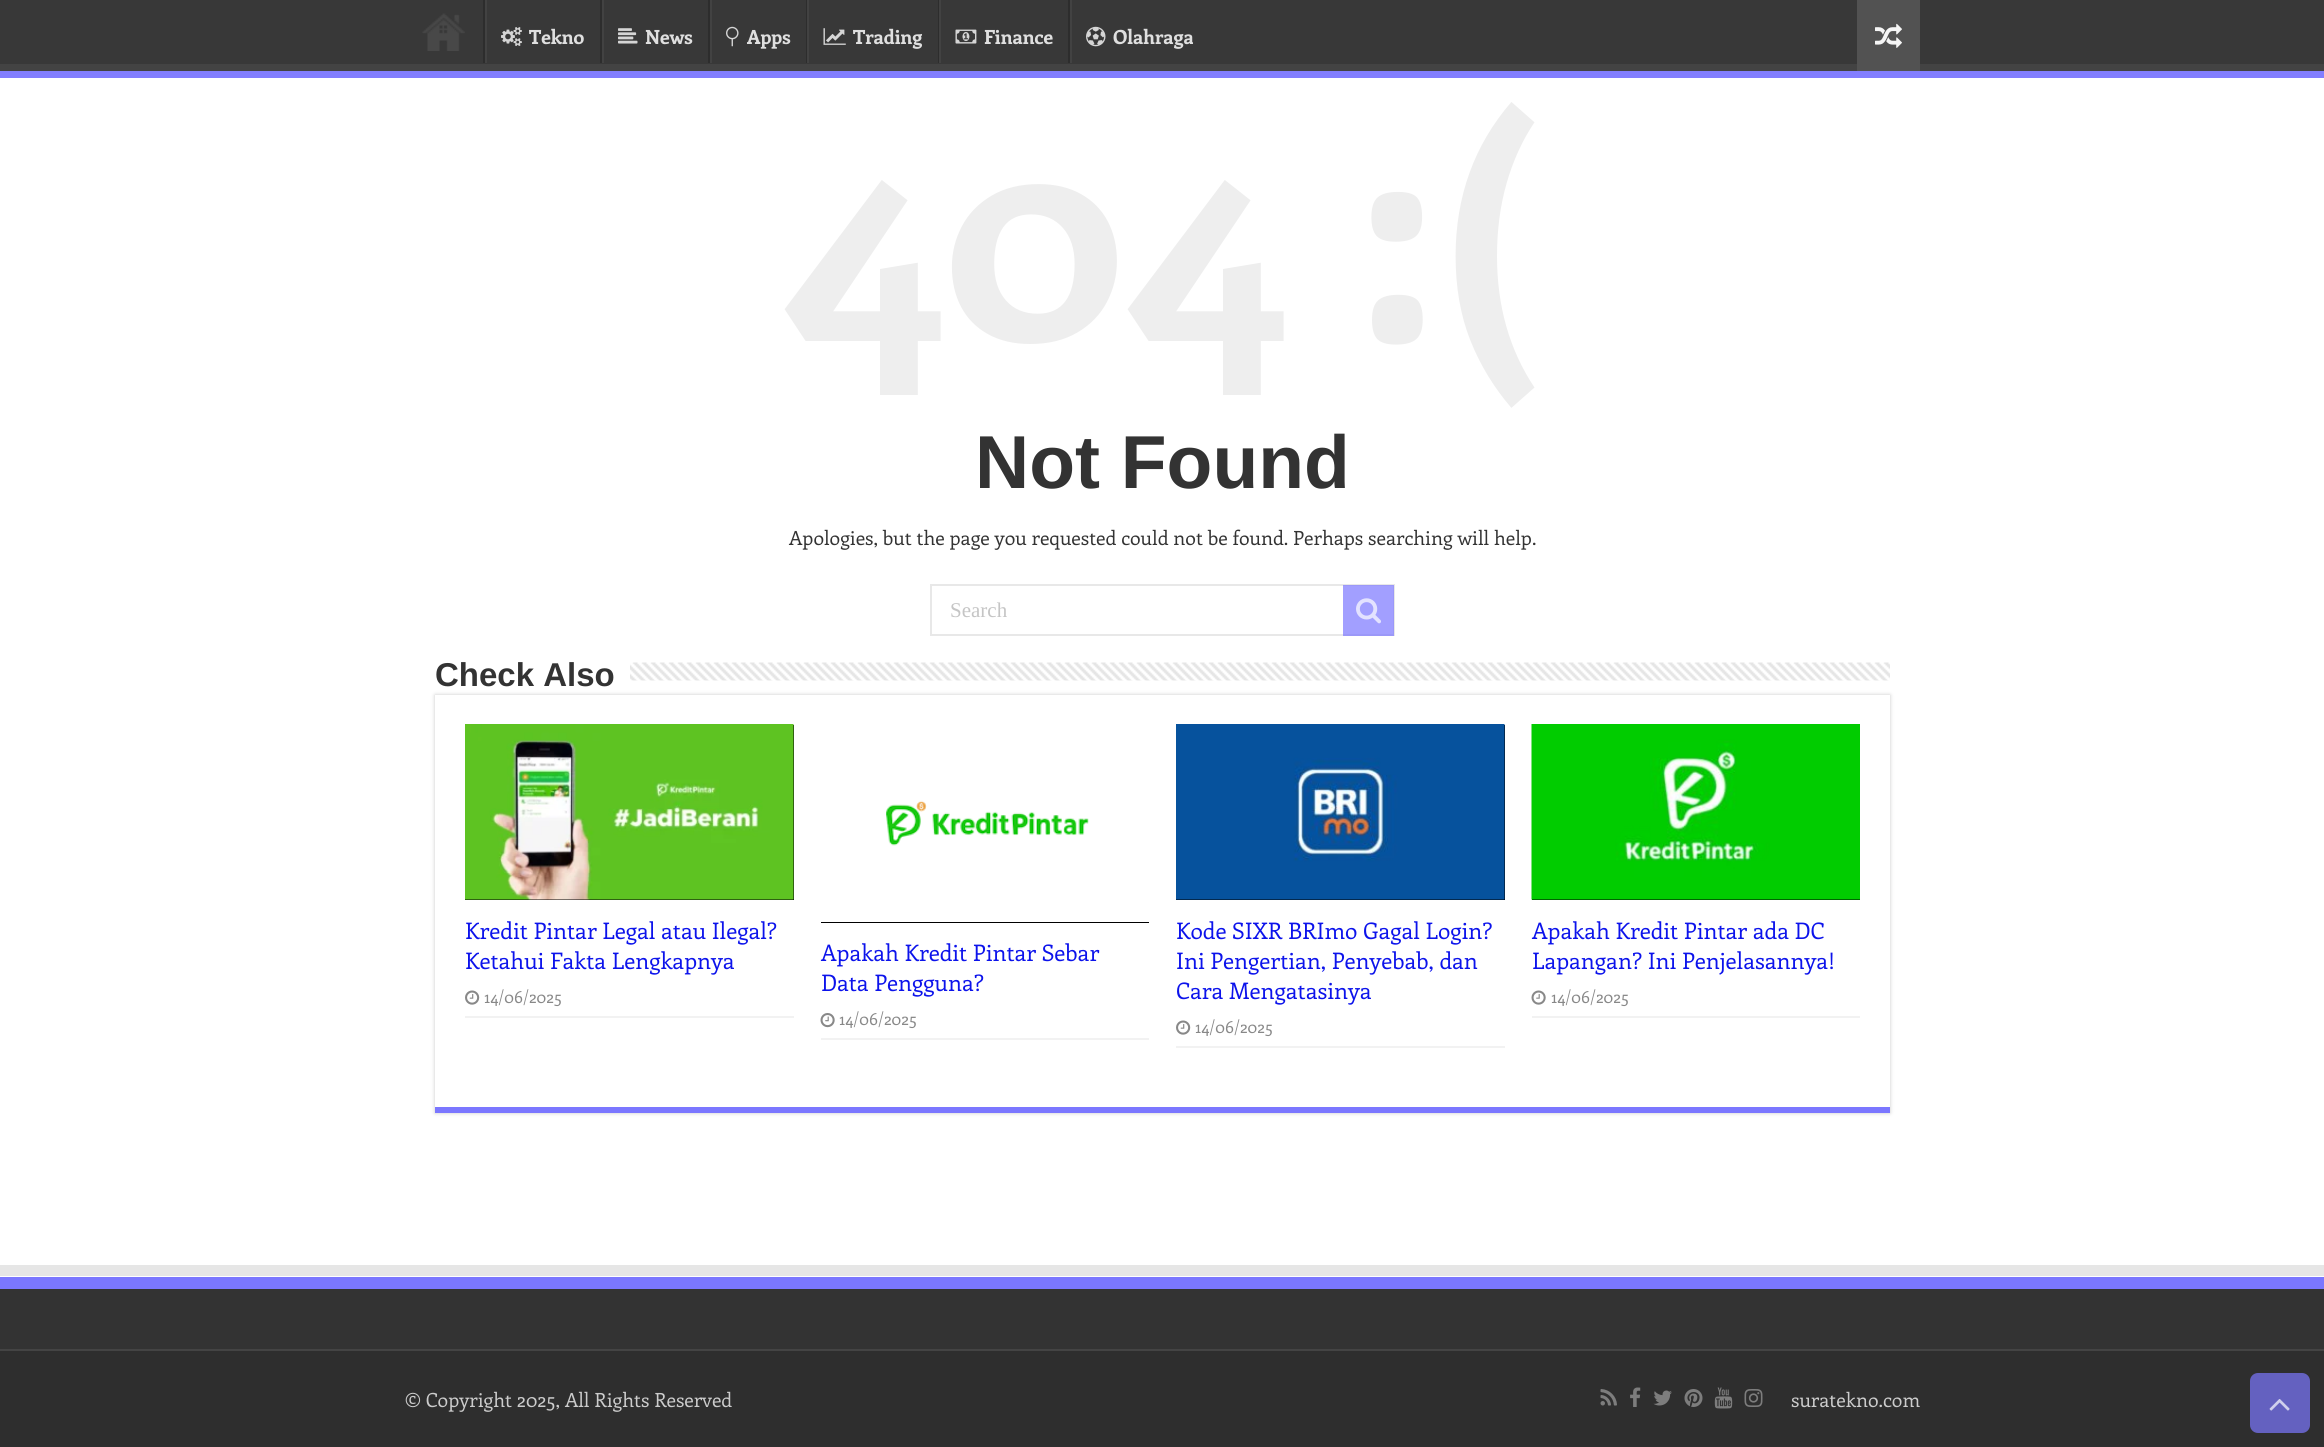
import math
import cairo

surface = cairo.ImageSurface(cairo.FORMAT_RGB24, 2324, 1447)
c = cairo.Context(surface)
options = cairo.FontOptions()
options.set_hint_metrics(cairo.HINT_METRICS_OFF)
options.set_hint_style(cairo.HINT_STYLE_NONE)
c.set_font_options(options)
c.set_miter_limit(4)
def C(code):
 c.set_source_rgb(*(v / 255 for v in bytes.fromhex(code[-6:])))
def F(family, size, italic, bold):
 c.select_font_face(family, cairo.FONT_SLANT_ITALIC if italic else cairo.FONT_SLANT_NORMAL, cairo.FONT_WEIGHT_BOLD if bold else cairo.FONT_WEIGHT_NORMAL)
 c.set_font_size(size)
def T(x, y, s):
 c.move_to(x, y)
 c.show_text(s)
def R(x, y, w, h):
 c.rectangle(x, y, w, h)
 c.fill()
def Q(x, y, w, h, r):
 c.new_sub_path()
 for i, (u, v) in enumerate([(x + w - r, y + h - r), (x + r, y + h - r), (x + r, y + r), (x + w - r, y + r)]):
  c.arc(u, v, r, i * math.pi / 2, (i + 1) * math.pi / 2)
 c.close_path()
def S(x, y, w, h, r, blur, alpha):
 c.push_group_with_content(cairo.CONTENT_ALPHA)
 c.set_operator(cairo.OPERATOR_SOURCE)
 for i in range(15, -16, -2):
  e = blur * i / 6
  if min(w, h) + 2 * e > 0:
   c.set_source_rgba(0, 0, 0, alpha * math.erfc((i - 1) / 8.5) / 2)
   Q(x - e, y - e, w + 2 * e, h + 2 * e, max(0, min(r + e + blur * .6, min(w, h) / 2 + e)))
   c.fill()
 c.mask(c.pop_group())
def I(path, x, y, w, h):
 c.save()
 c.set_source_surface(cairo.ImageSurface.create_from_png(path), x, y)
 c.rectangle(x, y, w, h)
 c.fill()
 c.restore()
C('ffffff')
c.paint()
C('383838')
R(0,0,2324,64)
c.save()
c.rectangle(0,0,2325,71)
c.clip()
C('434343')
c.set_fill_rule(cairo.FILL_RULE_EVEN_ODD)
c.new_path()
c.move_to(-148,-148)
c.line_to(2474,-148)
c.line_to(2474,219)
c.line_to(-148,219)
c.close_path()
c.move_to(-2,-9)
c.line_to(2324,-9)
c.curve_to(2324,-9,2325,-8,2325,-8)
c.line_to(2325,63)
c.curve_to(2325,64,2324,64,2324,64)
c.line_to(-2,64)
c.curve_to(-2,64,-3,64,-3,63)
c.line_to(-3,-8)
c.curve_to(-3,-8,-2,-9,-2,-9)
c.close_path()
c.fill()
c.restore()
C('827eff')
R(0,71,2324,7)
I('1.png',422,13,43,38)
C('2d2d2d')
R(483,0,2,63)
C('424242')
R(485,0,2,63)
I('2.png',501,27,21,19)
F('Enriqueta',19.5,0,1)
C('dfdfdf')
T(529,44,'Tekno')
C('2d2d2d')
R(600,0,2,63)
C('424242')
R(602,0,2,63)
I('3.png',618,28,20,16)
C('dfdfdf')
T(645,44,'News')
C('2d2d2d')
R(708,0,2,63)
C('424242')
R(710,0,2,63)
I('4.png',726,26,13,21)
C('dfdfdf')
T(747,44,'Apps')
C('2d2d2d')
R(806,0,1,63)
C('424242')
R(807,0,2,63)
I('5.png',823,28,23,17)
C('dfdfdf')
T(853,44,'Trading')
C('2d2d2d')
R(938,0,1,63)
C('424242')
R(939,0,2,63)
I('6.png',955,29,22,15)
C('dfdfdf')
T(984,44,'Finance')
C('2d2d2d')
R(1068,0,2,63)
C('424242')
R(1070,0,2,63)
I('7.png',1086,26,20,21)
C('dfdfdf')
T(1113,44,'Olahraga')
C('525252')
R(1857,0,63,71)
I('8.png',1875,23,27,25)
F('Enriqueta',300,0,1)
C('eeeeee')
T(781,341,'404 :(')
F('Liberation Sans',75,0,1)
C('333333')
T(975,488,'Not Found')
F('Enriqueta',19.5,0,0)
T(789,545,'Apologies, but the page you requested could not be found. Perhaps searching will help.')
c.rectangle(931,585,463,50)
C('e8e8e8')
c.stroke()
F('Liberation Serif',21,0,0)
C('c5c5c5')
T(950,617,'Search')
c.set_source_rgba(0.482,0.467,1,0.7)
R(1343,585,51,51)
I('9.png',1356,598,25,26)
F('Liberation Sans',33,0,1)
C('333333')
T(435,686,'Check Also')
I('10.png',630,662,1260,19)
c.save()
c.set_fill_rule(cairo.FILL_RULE_EVEN_ODD)
c.new_path()
c.move_to(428,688)
c.line_to(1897,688)
c.line_to(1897,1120)
c.line_to(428,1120)
c.close_path()
c.move_to(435,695)
c.line_to(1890,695)
c.line_to(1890,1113)
c.line_to(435,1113)
c.close_path()
c.clip()
C('cacaca')
S(435,695,1455,418,0,2,1)
c.restore()
C('7b77ff')
R(435,1107,1455,6)
C('000000')
R(465,725,329,175)
I('11.png',465,724,329,176)
F('Enriqueta',22.75,0,0)
C('0c13eb')
T(465,939,'Kredit Pintar Legal atau Ilegal?')
T(465,969,'Ketahui Fakta Lengkapnya')
C('f2f2f2')
R(465,1016,329,2)
I('12.png',465,990,15,15)
F('Enriqueta',16.5,0,0)
C('888888')
T(484,1003,'14/06/2025')
C('000000')
R(821,922,328,1)
I('13.png',821,725,328,197)
F('Enriqueta',22.75,0,0)
C('0c13eb')
T(821,961,'Apakah Kredit Pintar Sebar')
T(821,991,'Data Pengguna?')
C('f2f2f2')
R(821,1038,328,2)
I('14.png',820,1013,15,15)
F('Enriqueta',16.5,0,0)
C('888888')
T(839,1025,'14/06/2025')
C('000000')
R(1176,725,329,175)
I('15.png',1176,724,329,176)
F('Enriqueta',22.75,0,0)
C('0c13eb')
T(1176,939,'Kode SIXR BRImo Gagal Login?')
T(1176,969,'Ini Pengertian, Penyebab, dan')
T(1176,999,'Cara Mengatasinya')
C('f2f2f2')
R(1176,1046,329,2)
I('12.png',1176,1020,15,15)
F('Enriqueta',16.5,0,0)
C('888888')
T(1195,1033,'14/06/2025')
C('000000')
R(1532,899,328,1)
I('16.png',1531,724,329,176)
F('Enriqueta',22.75,0,0)
C('0c13eb')
T(1532,939,'Apakah Kredit Pintar ada DC')
T(1532,969,'Lapangan? Ini Penjelasannya!')
C('f2f2f2')
R(1532,1016,328,2)
I('17.png',1531,990,15,15)
F('Enriqueta',16.5,0,0)
C('888888')
T(1551,1003,'14/06/2025')
C('e6e6e6')
R(0,1265,2324,11)
C('333333')
R(0,1289,2324,60)
C('7b77ff')
R(0,1277,2324,12)
C('2e2e2e')
R(0,1351,2324,96)
C('444444')
R(0,1349,2324,2)
F('Enriqueta',19.5,0,0)
C('cccccc')
T(405,1407,'© Copyright 2025, All Rights Reserved')
I('18.png',1600,1389,17,17)
I('19.png',1630,1387,11,20)
I('20.png',1653,1390,19,16)
I('21.png',1684,1389,19,18)
I('22.png',1714,1387,19,22)
I('23.png',1744,1389,19,18)
T(1791,1407,'suratekno.com')
C('6461c0')
Q(2250,1373,60,60,8)
c.fill()
I('24.png',2269,1399,21,12)
surface.write_to_png('o.png')
